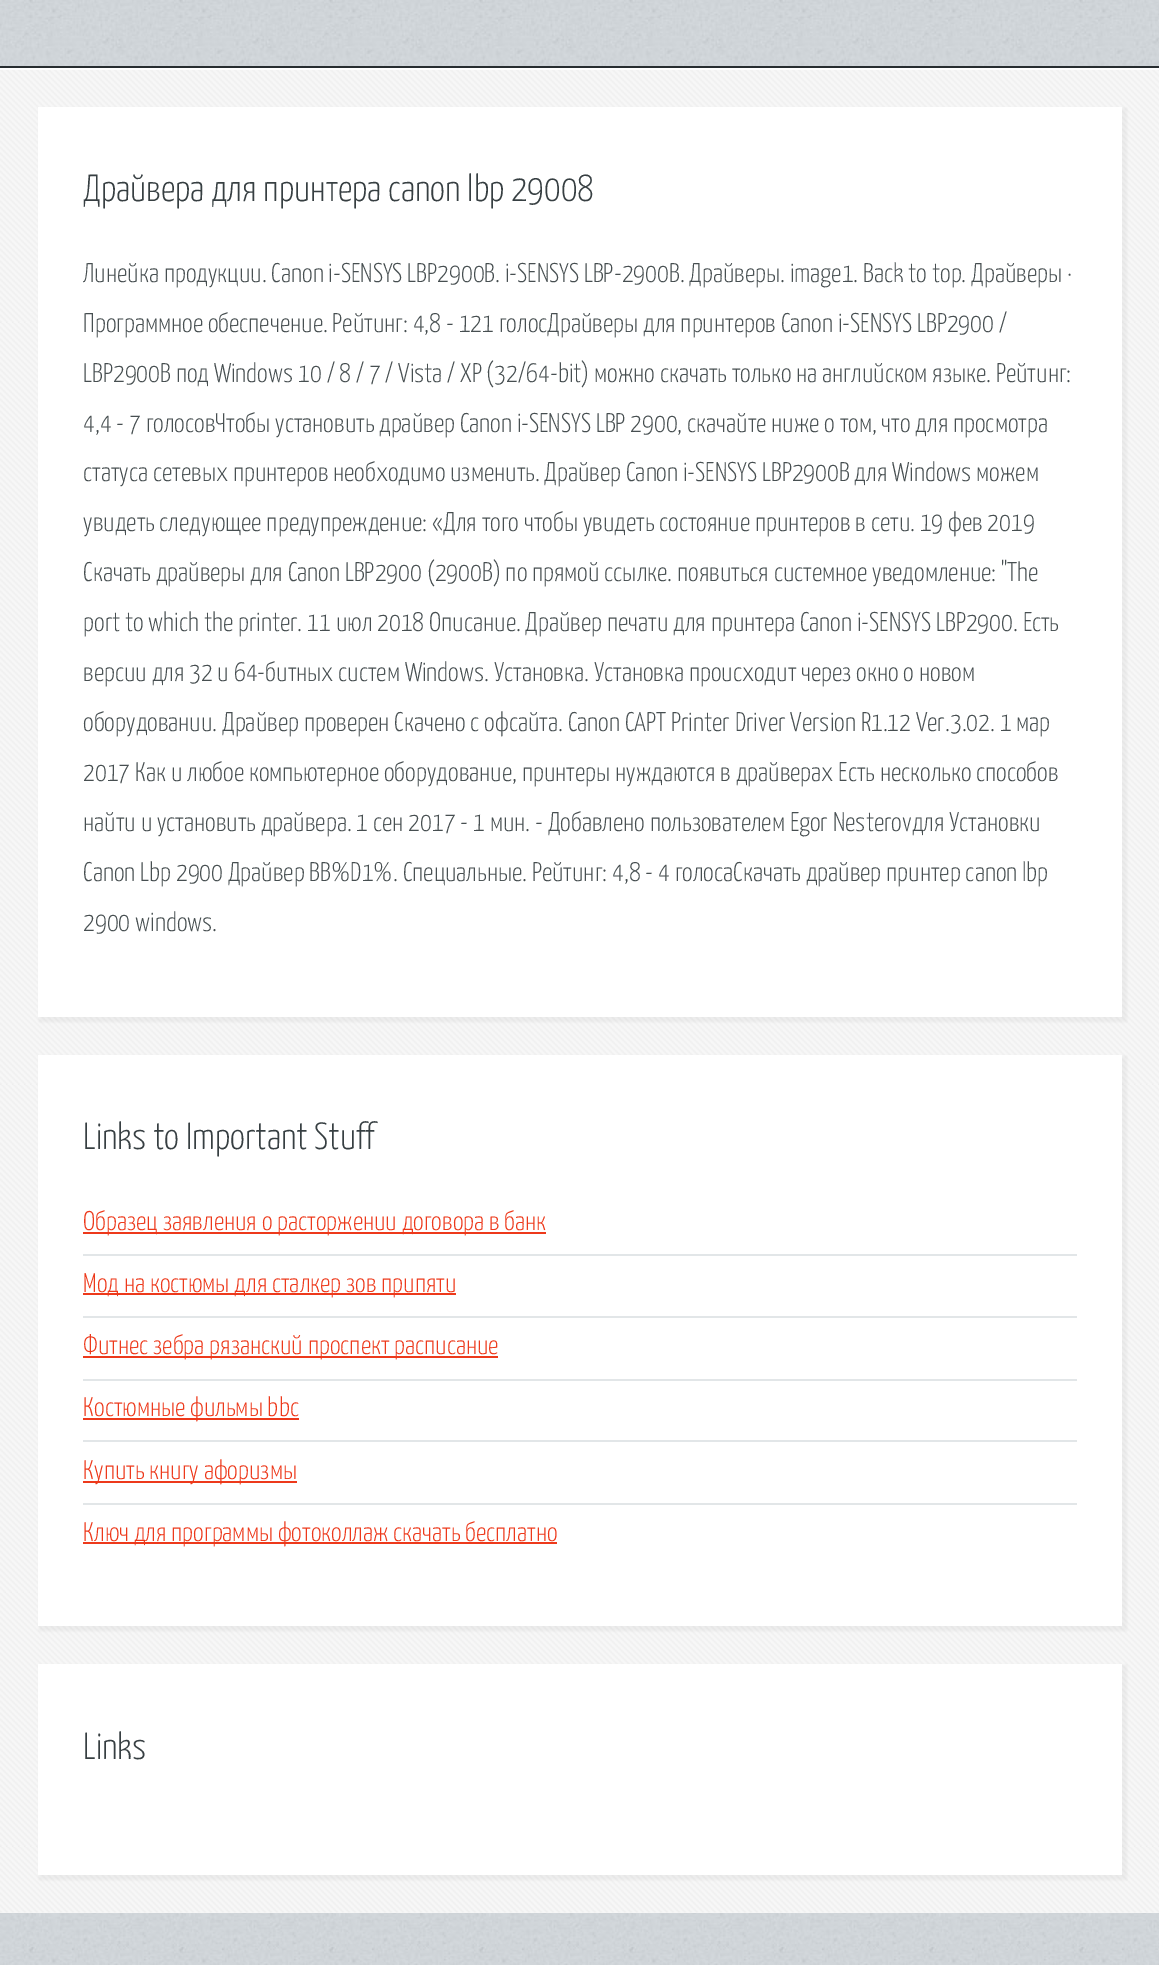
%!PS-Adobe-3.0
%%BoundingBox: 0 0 1159 1965
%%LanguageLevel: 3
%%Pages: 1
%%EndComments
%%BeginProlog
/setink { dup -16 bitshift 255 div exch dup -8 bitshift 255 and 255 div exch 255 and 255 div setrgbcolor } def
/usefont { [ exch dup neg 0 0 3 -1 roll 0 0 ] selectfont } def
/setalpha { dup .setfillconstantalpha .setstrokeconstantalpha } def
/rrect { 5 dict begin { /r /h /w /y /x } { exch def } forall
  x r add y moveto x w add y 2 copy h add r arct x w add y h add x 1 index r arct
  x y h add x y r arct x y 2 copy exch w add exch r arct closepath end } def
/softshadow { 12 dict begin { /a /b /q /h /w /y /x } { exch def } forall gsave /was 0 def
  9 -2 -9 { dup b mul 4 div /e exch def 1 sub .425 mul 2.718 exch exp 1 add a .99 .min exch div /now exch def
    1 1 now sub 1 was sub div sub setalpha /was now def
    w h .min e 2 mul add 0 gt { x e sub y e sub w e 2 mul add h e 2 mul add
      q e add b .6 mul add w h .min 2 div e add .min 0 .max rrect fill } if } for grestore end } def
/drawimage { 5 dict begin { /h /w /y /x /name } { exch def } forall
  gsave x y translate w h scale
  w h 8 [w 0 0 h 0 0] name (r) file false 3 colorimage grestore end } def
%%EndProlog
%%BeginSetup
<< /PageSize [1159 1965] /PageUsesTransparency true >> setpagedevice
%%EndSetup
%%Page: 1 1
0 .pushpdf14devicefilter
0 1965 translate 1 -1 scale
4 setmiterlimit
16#FFFFFF setink
0 0 1159 1965 rectfill
(img1.raw) 0 0 1159 1965 drawimage
16#272D30 setink
0 66 1159 2 rectfill
16#F7F7F7 setink
0 70 1159 1843 rectfill
(img2.raw) 0 70 1159 1843 drawimage
16#FFFFFF setink
0 68 1159 2 rectfill
16#808080 setink
39 108 1088 914 0 1.5 0.1 softshadow
16#FFFFFF setink
38 107 1084 910 rectfill
/YanoneKaffeesatz-Light 37.75 usefont
16#373F42 setink
83 201 moveto (Драйвера для принтера canon lbp 29008) show
/YanoneKaffeesatz-Light 27 usefont
16#474F51 setink
[
    [(Линейка продукции. Canon i-SENSYS LBP2900B. i-SENSYS LBP-2900B. Драйверы. image1. Back to top. Драйверы ·) 83 282]
    [(Программное обеспечение. Рейтинг: 4,8 - 121 голосДрайверы для принтеров Canon i-SENSYS LBP2900 /) 83 332]
    [(LBP2900B под Windows 10 / 8 / 7 / Vista / XP \(32/64-bit\) можно скачать только на английском языке. Рейтинг:) 83 382]
    [(4,4 - 7 голосовЧтобы установить драйвер Canon i-SENSYS LBP 2900, скачайте ниже о том, что для просмотра) 83 432]
    [(статуса сетевых принтеров необходимо изменить. Драйвер Canon i-SENSYS LBP2900B для Windows можем) 83 481]
    [(увидеть следующее предупреждение: «Для того чтобы увидеть состояние принтеров в сети. 19 фев 2019) 83 531]
    [(Скачать драйверы для Canon LBP2900 \(2900B\) по прямой ссылке. появиться системное уведомление: "The) 83 581]
    [(port to which the printer. 11 июл 2018 Описание. Драйвер печати для принтера Canon i-SENSYS LBP2900. Есть) 83 631]
    [(версии для 32 и 64-битных систем Windows. Установка. Установка происходит через окно о новом) 83 681]
    [(оборудовании. Драйвер проверен Скачено с офсайта. Canon CAPT Printer Driver Version R1.12 Ver.3.02. 1 мар) 83 731]
    [(2017 Как и любое компьютерное оборудование, принтеры нуждаются в драйверах Есть несколько способов) 83 781]
    [(найти и установить драйвера. 1 сен 2017 - 1 мин. - Добавлено пользователем Egor Nesterovдля Установки) 83 831]
    [(Canon Lbp 2900 Драйвер BB%D1%. Специальные. Рейтинг: 4,8 - 4 голосаСкачать драйвер принтер canon lbp) 83 881]
    [(2900 windows.) 83 931]
] { aload pop moveto show } forall
16#808080 setink
39 1056 1088 575 0 1.5 0.1 softshadow
16#FFFFFF setink
38 1055 1084 571 rectfill
/YanoneKaffeesatz-Light 37.75 usefont
16#373F42 setink
83 1149 moveto (Links to Important Stuff) show
16#E2E6E8 setink
83 1254 994 2 rectfill
16#ED391B setink
83 1232 463 2 rectfill
/YanoneKaffeesatz-Light 27 usefont
83 1230 moveto (Образец заявления о расторжении договора в банк) show
16#E2E6E8 setink
83 1316 994 2 rectfill
16#ED391B setink
83 1293 373 2 rectfill
83 1292 moveto (Мод на костюмы для сталкер зов припяти) show
16#E2E6E8 setink
83 1379 994 2 rectfill
16#ED391B setink
83 1356 415 2 rectfill
83 1354 moveto (Фитнес зебра рязанский проспект расписание) show
16#E2E6E8 setink
83 1440 994 2 rectfill
16#ED391B setink
83 1418 216 2 rectfill
83 1416 moveto (Костюмные фильмы bbc) show
16#E2E6E8 setink
83 1503 994 2 rectfill
16#ED391B setink
83 1481 214 2 rectfill
83 1479 moveto (Купить книгу афоризмы) show
83 1542 474 2 rectfill
83 1541 moveto (Ключ для программы фотоколлаж скачать бесплатно) show
16#808080 setink
39 1665 1088 215 0 1.5 0.1 softshadow
16#FFFFFF setink
38 1664 1084 211 rectfill
/YanoneKaffeesatz-Light 37.75 usefont
16#373F42 setink
83 1759 moveto (Links) show
.poppdf14devicefilter showpage
%%EOF
